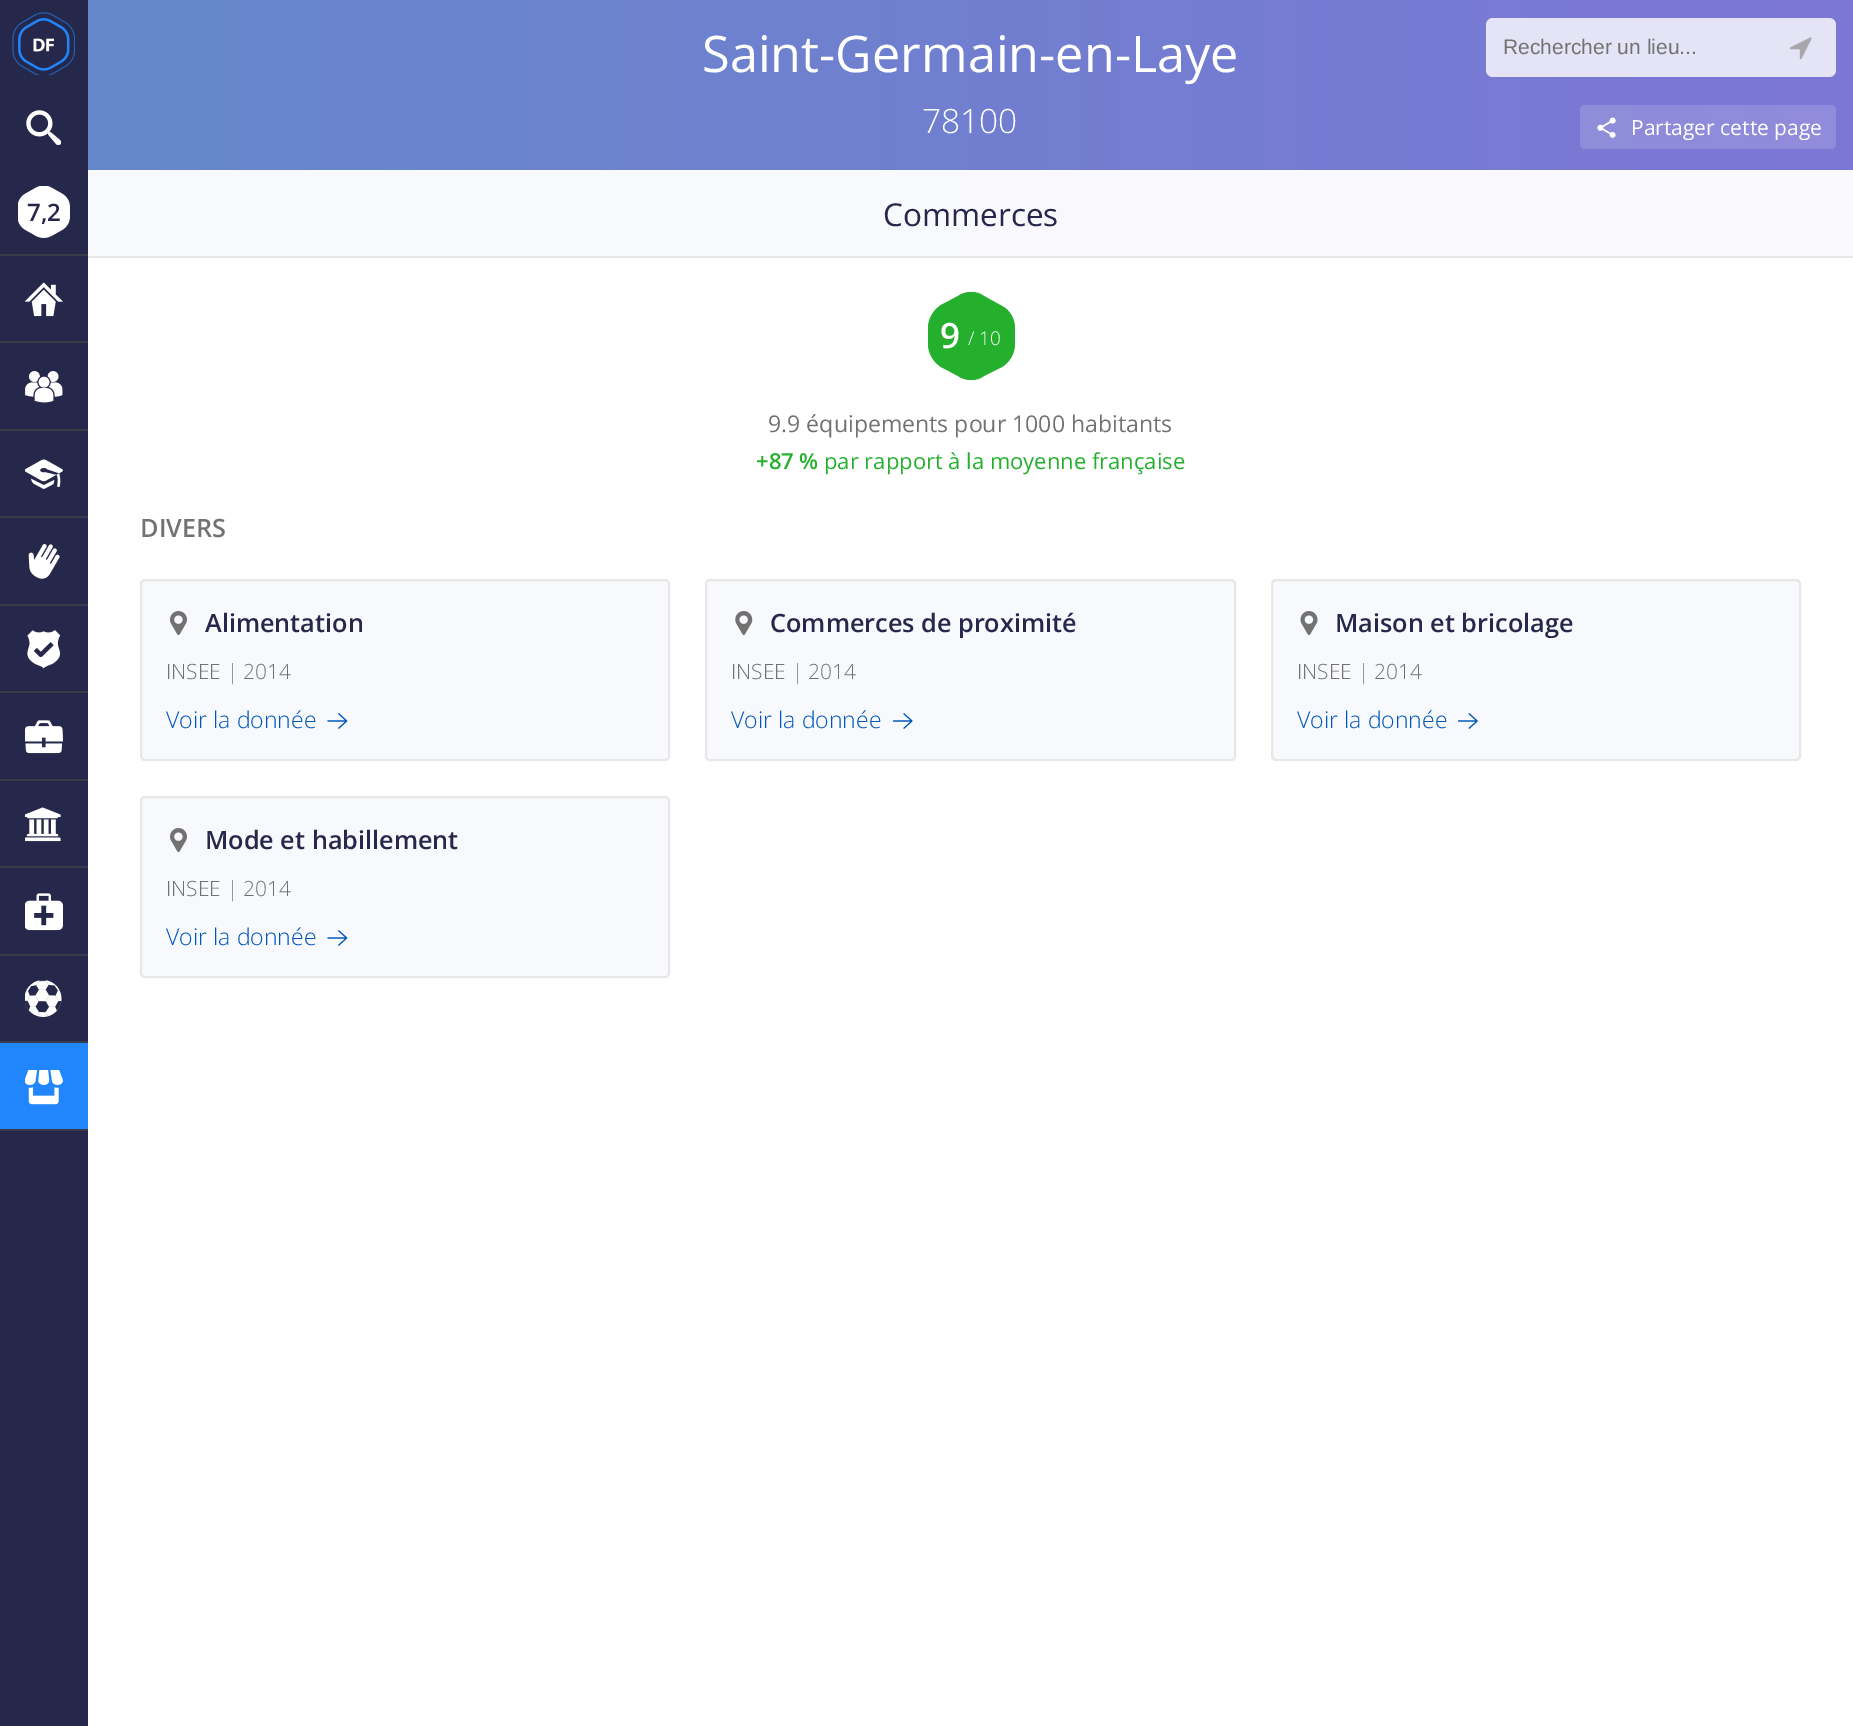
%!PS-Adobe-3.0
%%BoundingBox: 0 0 1853 1726
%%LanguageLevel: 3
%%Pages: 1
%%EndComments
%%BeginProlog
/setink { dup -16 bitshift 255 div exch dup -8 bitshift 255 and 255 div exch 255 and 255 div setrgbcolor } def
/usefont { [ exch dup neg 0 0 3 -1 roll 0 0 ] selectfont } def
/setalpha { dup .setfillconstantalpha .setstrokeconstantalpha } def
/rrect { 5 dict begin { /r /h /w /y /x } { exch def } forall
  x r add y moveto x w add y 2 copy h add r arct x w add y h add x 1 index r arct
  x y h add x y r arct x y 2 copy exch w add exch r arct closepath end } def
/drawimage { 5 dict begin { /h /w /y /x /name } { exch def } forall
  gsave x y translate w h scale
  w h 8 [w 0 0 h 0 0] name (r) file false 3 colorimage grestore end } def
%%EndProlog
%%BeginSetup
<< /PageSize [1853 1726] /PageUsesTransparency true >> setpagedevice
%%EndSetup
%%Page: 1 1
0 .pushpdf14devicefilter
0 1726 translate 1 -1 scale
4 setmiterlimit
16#FFFFFF setink
0 0 1853 1726 rectfill
16#25284A setink
0 0 88 1726 rectfill
(img1.raw) 12 12 63 63 drawimage
(img2.raw) 26 110 35 35 drawimage
16#3A3B49 setink
0 254 88 2 rectfill
(img3.raw) 18 186 52 52 drawimage
/OpenSans-SemiBold 24 usefont
16#25284A setink
27 221 moveto (7,2) show
16#3A3B49 setink
0 341 88 2 rectfill
(img4.raw) 25 282 38 35 drawimage
0 429 88 2 rectfill
(img5.raw) 25 371 38 32 drawimage
0 516 88 2 rectfill
(img6.raw) 25 459 38 30 drawimage
0 604 88 2 rectfill
(img7.raw) 28 544 32 35 drawimage
0 691 88 2 rectfill
(img8.raw) 27 630 34 39 drawimage
0 779 88 2 rectfill
(img9.raw) 25 720 38 34 drawimage
0 866 88 2 rectfill
(img10.raw) 25 807 36 35 drawimage
0 954 88 2 rectfill
(img11.raw) 25 893 38 38 drawimage
0 1041 88 2 rectfill
(img12.raw) 25 980 37 37 drawimage
16#2185FB setink
0 1043 88 86 rectfill
16#3A3B49 setink
0 1129 88 2 rectfill
(img13.raw) 25 1070 38 35 drawimage
gsave 88 0 moveto 1853 0 lineto 1853 170 lineto 88 170 lineto closepath clip newpath
<< /ShadingType 2 /ColorSpace /DeviceRGB /Coords [88 129 1853 129] /Extend [true true] /Function << /FunctionType 2 /Domain [0 1] /C0 [0.396 0.533 0.792] /C1 [0.49 0.467 0.839] /N 1 >> >> shfill grestore
gsave 88 170 moveto 1853 170 lineto 1853 256 lineto 88 256 lineto closepath clip newpath
<< /ShadingType 2 /ColorSpace /DeviceRGB /Coords [88 129 1853 129] /Extend [true true] /Function << /FunctionType 2 /Domain [0 1] /C0 [0.969 0.976 0.988] /C1 [0.976 0.973 0.992] /N 1 >> >> shfill grestore
/OpenSans-Regular 50.4 usefont
16#FFFFFF setink
702 72 moveto (Saint-Germain-en-Laye) show
/OpenSans-Light 33.5 usefont
922 133 moveto (78100) show
0.15 setalpha
1580 105 256 44 5 rrect fill
1 setalpha
(img14.raw) 1597 117 19 21 drawimage
/OpenSans-Regular 21 usefont
1631 135 moveto (Partager cette page) show
16#E7E7E7 setink
88 256 1765 2 rectfill
/OpenSans-Regular 31.5 usefont
16#25284A setink
883 226 moveto (Commerces) show
0.8 setalpha
16#FFFFFF setink
1486 18 350 59 7 rrect fill
/LiberationSans-Regular 21 usefont
1 setalpha
16#727272 setink
1503 54 moveto (Rechercher un lieu...) show
(img15.raw) 1789 37 23 23 drawimage
16#24AF2D setink
971 292 moveto 967 292 962 293 958 296 curveto 941 305 lineto 933 310 928 319 928 328 curveto 928 344 lineto 928 353 933 362 941 367 curveto 958 376 lineto 962 379 967 380 971 380 curveto 976 380 980 379 984 376 curveto 1002 367 lineto 1010 362 1015 353 1015 344 curveto 1015 328 lineto 1015 319 1010 310 1002 306 curveto 984 296 lineto 980 293 976 292 971 292 curveto closepath fill
/OpenSans-SemiBold 35 usefont
16#FFFFFF setink
940 348 moveto (9) show
/OpenSans-Light 19 usefont
968 345 moveto (/ 10) show
/OpenSans-Regular 23.1 usefont
16#727272 setink
768 432 moveto (9.9 équipements pour 1000 habitants) show
/OpenSans-SemiBold 22 usefont
16#24AF2D setink
756 469 moveto (+87 %) show
/OpenSans-Regular 22 usefont
824 469 moveto (par rapport à la moyenne française) show
/OpenSans-SemiBold 25.25 usefont
16#727272 setink
140 537 moveto (DIVERS) show
16#F7F9FC setink
141 580 528 180 4 rrect gsave fill grestore
16#E7E7E7 setink
2 setlinewidth
stroke
(img16.raw) 170 611 17 24 drawimage
16#25284A setink
205 632 moveto (Alimentation) show
/OpenSans-Light 21 usefont
16#727272 setink
166 679 moveto (INSEE | 2014) show
/OpenSans-Light 23.1 usefont
16#0056BB setink
166 728 moveto (Voir la donnée) show
(img17.raw) 327 713 21 16 drawimage
16#F7F9FC setink
706 580 529 180 4 rrect gsave fill grestore
16#E7E7E7 setink
stroke
(img18.raw) 735 611 18 24 drawimage
/OpenSans-SemiBold 25.25 usefont
16#25284A setink
770 632 moveto (Commerces de proximité) show
/OpenSans-Light 21 usefont
16#727272 setink
731 679 moveto (INSEE | 2014) show
/OpenSans-Light 23.1 usefont
16#0056BB setink
731 728 moveto (Voir la donnée) show
(img19.raw) 893 713 20 16 drawimage
16#F7F9FC setink
1272 580 528 180 4 rrect gsave fill grestore
16#E7E7E7 setink
stroke
(img20.raw) 1300 611 18 24 drawimage
/OpenSans-SemiBold 25.25 usefont
16#25284A setink
1335 632 moveto (Maison et bricolage) show
/OpenSans-Light 21 usefont
16#727272 setink
1297 679 moveto (INSEE | 2014) show
/OpenSans-Light 23.1 usefont
16#0056BB setink
1297 728 moveto (Voir la donnée) show
(img21.raw) 1458 713 20 16 drawimage
16#F7F9FC setink
141 797 528 180 4 rrect gsave fill grestore
16#E7E7E7 setink
stroke
(img16.raw) 170 828 17 24 drawimage
/OpenSans-SemiBold 25.25 usefont
16#25284A setink
205 849 moveto (Mode et habillement) show
/OpenSans-Light 21 usefont
16#727272 setink
166 896 moveto (INSEE | 2014) show
/OpenSans-Light 23.1 usefont
16#0056BB setink
166 945 moveto (Voir la donnée) show
(img17.raw) 327 930 21 16 drawimage
.poppdf14devicefilter showpage
%%EOF
